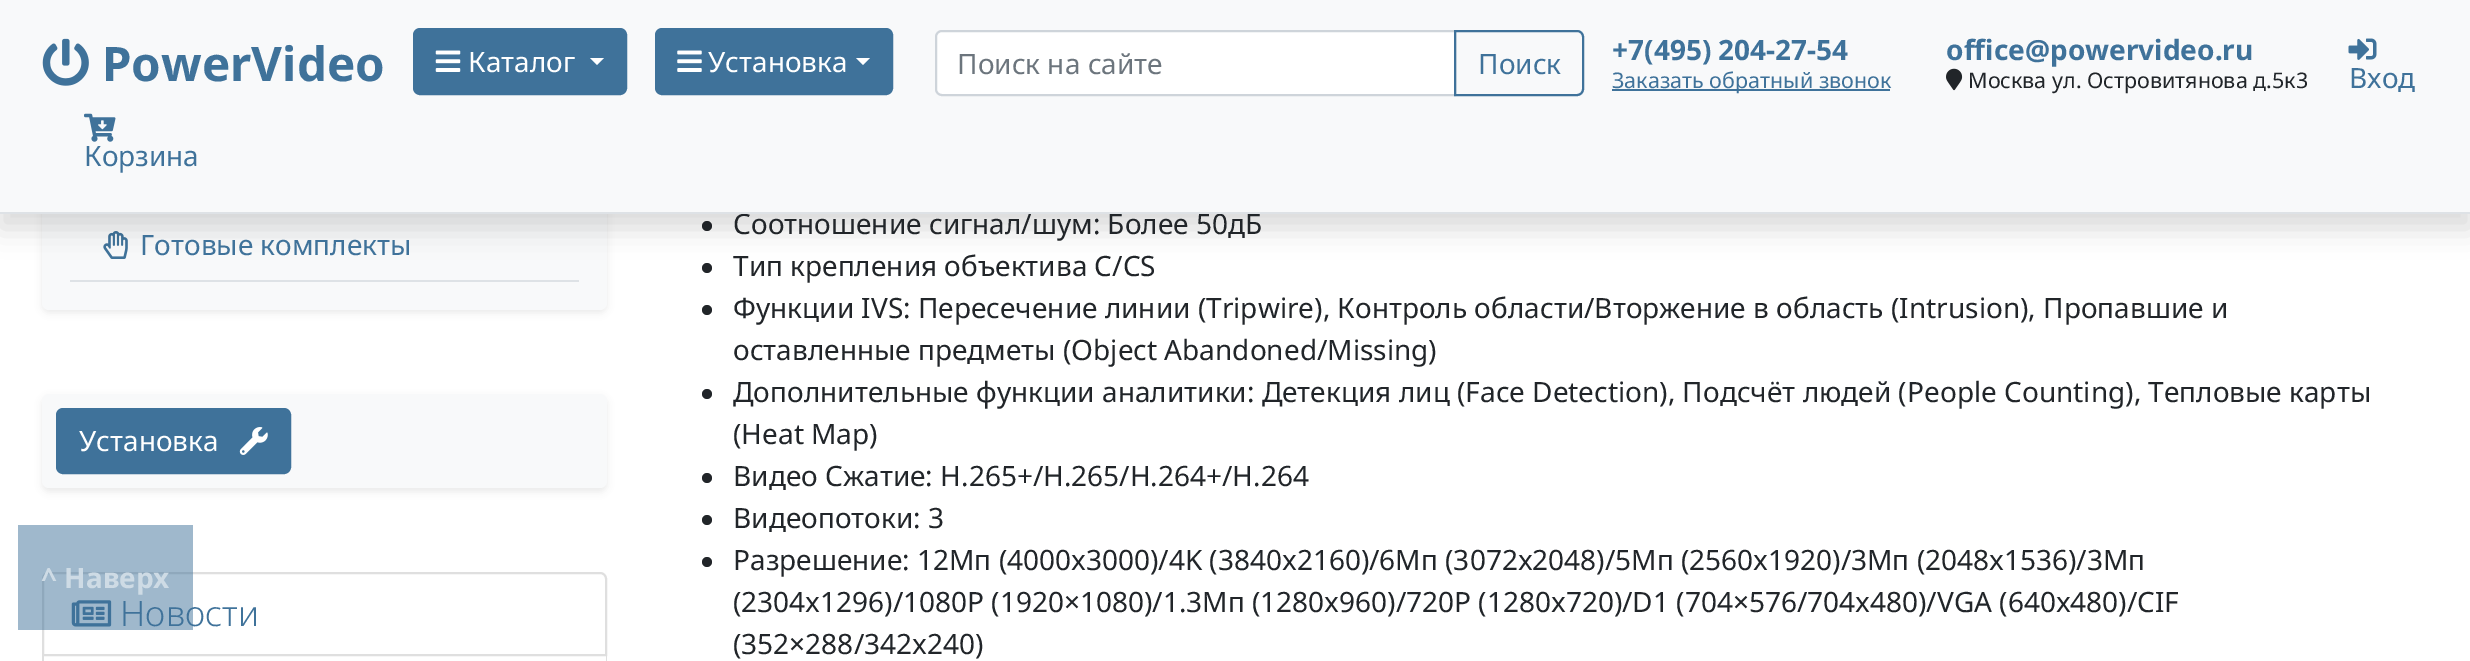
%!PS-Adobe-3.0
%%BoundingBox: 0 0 2470 661
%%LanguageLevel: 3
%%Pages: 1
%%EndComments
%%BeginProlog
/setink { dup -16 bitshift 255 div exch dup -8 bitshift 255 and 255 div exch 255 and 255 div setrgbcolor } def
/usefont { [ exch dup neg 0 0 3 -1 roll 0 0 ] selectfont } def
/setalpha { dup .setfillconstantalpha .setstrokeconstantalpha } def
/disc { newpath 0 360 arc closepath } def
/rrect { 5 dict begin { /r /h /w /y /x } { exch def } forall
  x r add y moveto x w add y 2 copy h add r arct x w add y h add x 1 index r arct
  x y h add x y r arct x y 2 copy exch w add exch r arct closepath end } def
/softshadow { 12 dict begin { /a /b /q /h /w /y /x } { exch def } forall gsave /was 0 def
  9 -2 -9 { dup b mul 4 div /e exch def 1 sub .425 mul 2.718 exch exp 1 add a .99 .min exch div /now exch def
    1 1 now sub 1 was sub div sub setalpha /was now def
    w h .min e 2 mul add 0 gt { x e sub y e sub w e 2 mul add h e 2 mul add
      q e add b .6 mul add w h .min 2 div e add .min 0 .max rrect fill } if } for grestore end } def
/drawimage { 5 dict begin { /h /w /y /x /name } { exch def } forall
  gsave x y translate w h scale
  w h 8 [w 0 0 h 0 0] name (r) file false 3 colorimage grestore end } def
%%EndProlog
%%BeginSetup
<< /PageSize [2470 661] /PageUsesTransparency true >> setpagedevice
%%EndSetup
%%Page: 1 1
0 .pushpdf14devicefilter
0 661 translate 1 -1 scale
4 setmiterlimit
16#FFFFFF setink
0 0 2470 661 rectfill
16#000000 setink
42 -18 565 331 7 3.5 0.07 softshadow
16#F8F9FA setink
42 -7 565 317 7 rrect fill
(img7.raw) 103 231 25 28 drawimage
16#212529 setink
707 226 5 disc fill
707 268 5 disc fill
16#000000 setink
0 14 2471 214 0 14 0.15 softshadow
16#F8F9FA setink
0 0 2470 212 rectfill
/NotoSans-Regular 28 usefont
16#212529 setink
733 234 moveto (Соотношение сигнал/шум: Более 50дБ) show
16#DEE2E6 setink
0 212 2470 2 rectfill
(img1.raw) 42 38 47 48 drawimage
/NotoSans-Bold 47.5 usefont
16#3F729A setink
102 81 moveto (PowerVideo) show
414 29 212 65 6 rrect gsave fill grestore
2 setlinewidth
stroke
(img2.raw) 435 50 26 22 drawimage
/NotoSans-Regular 28 usefont
16#FFFFFF setink
468 72 moveto (Каталог) show
590 58 moveto 604 58 lineto 597 65 lineto closepath fill
16#3F729A setink
656 29 236 65 6 rrect gsave fill grestore
stroke
(img3.raw) 677 50 25 22 drawimage
16#FFFFFF setink
708 72 moveto (Установка) show
856 58 moveto 870 58 lineto 863 65 lineto closepath fill
942 31 moveto 1455 31 lineto 1455 95 lineto 942 95 lineto 938.5 95 936 92.5 936 89 curveto 936 37 lineto 936 33.5 938.5 31 942 31 curveto closepath gsave fill grestore
16#CED4DA setink
stroke
16#6C757D setink
957 74 moveto (Поиск на сайте) show
16#3F729A setink
1455 31 moveto 1577 31 lineto 1580.5 31 1583 33.5 1583 37 curveto 1583 89 lineto 1583 92.5 1580.5 95 1577 95 curveto 1455 95 lineto closepath stroke
1478 74 moveto (Поиск) show
/NotoSans-Bold 28 usefont
1612 60 moveto (+7\(495\) 204-27-54) show
1612 89 278 2 rectfill
/NotoSans-Regular 21.5 usefont
1612 88 moveto (Заказать обратный звонок) show
/NotoSans-Bold 28 usefont
1946 60 moveto (office@powervideo.ru) show
(img4.raw) 1946 68 17 23 drawimage
/NotoSans-Regular 21.5 usefont
16#212529 setink
1968 88 moveto (Москва ул. Островитянова д.5к3) show
(img5.raw) 2348 38 29 22 drawimage
/NotoSans-Regular 28 usefont
16#3F729A setink
2349 88 moveto (Вход) show
(img6.raw) 84 113 32 29 drawimage
84 166 moveto (Корзина) show
16#DEE2E6 setink
70 280 509 2 rectfill
16#3F729A setink
140 255 moveto (Готовые комплекты) show
16#000000 setink
42 397 565 95 7 3.5 0.07 softshadow
16#F8F9FA setink
42 394 565 94 7 rrect fill
16#3F729A setink
57 409 233 64 6 rrect gsave fill grestore
stroke
16#FFFFFF setink
79 451 moveto (Установка) show
(img8.raw) 239 427 29 28 drawimage
16#DFDFDF setink
49 573 moveto 600 573 lineto 603.5 573 606 575.5 606 579 curveto 606 655 lineto 43 655 lineto 43 579 lineto 43 575.5 45.5 573 49 573 curveto closepath stroke
(img9.raw) 71 600 41 27 drawimage
/NotoSans-Light 35 usefont
16#3F729A setink
120 626 moveto (Новости) show
16#DFDFDF setink
607 656 moveto 607 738 lineto 606 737 lineto 606 656 lineto closepath fill
42 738 moveto 42 656 lineto 44 656 lineto 44 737 lineto closepath fill
/NotoSans-Regular 28 usefont
16#212529 setink
733 276 moveto (Тип крепления объектива C/CS) show
707 310 5 disc fill
733 318 moveto (Функции IVS: Пересечение линии \(Tripwire\), Контроль области/Вторжение в область \(Intrusion\), Пропавшие и) show
733 360 moveto (оставленные предметы \(Object Abandoned/Missing\)) show
707 394 5 disc fill
733 402 moveto (Дополнительные функции аналитики: Детекция лиц \(Face Detection\), Подсчёт людей \(People Counting\), Тепловые карты) show
733 444 moveto (\(Heat Map\)) show
707 478 5 disc fill
733 486 moveto (Видео Сжатие: H.265+/H.265/H.264+/H.264) show
707 520 5 disc fill
733 528 moveto (Видеопотоки: 3) show
707 562 5 disc fill
[
    [(Разрешение: 12Mп \(4000x3000\)/4K \(3840x2160\)/6Mп \(3072x2048\)/5Mп \(2560x1920\)/3Mп \(2048x1536\)/3Mп) 733 570]
    [(\(2304x1296\)/1080P \(1920×1080\)/1.3Mп \(1280x960\)/720P \(1280x720\)/D1 \(704×576/704x480\)/VGA \(640x480\)/CIF) 733 612]
    [(\(352×288/342x240\)) 733 654]
] { aload pop moveto show } forall
0.5 setalpha
16#3F729A setink
18 525 175 105 rectfill
/NotoSans-Bold 28 usefont
1 setalpha
16#CEDBE5 setink
41 588 moveto (^ Наверх) show
.poppdf14devicefilter showpage
%%EOF
